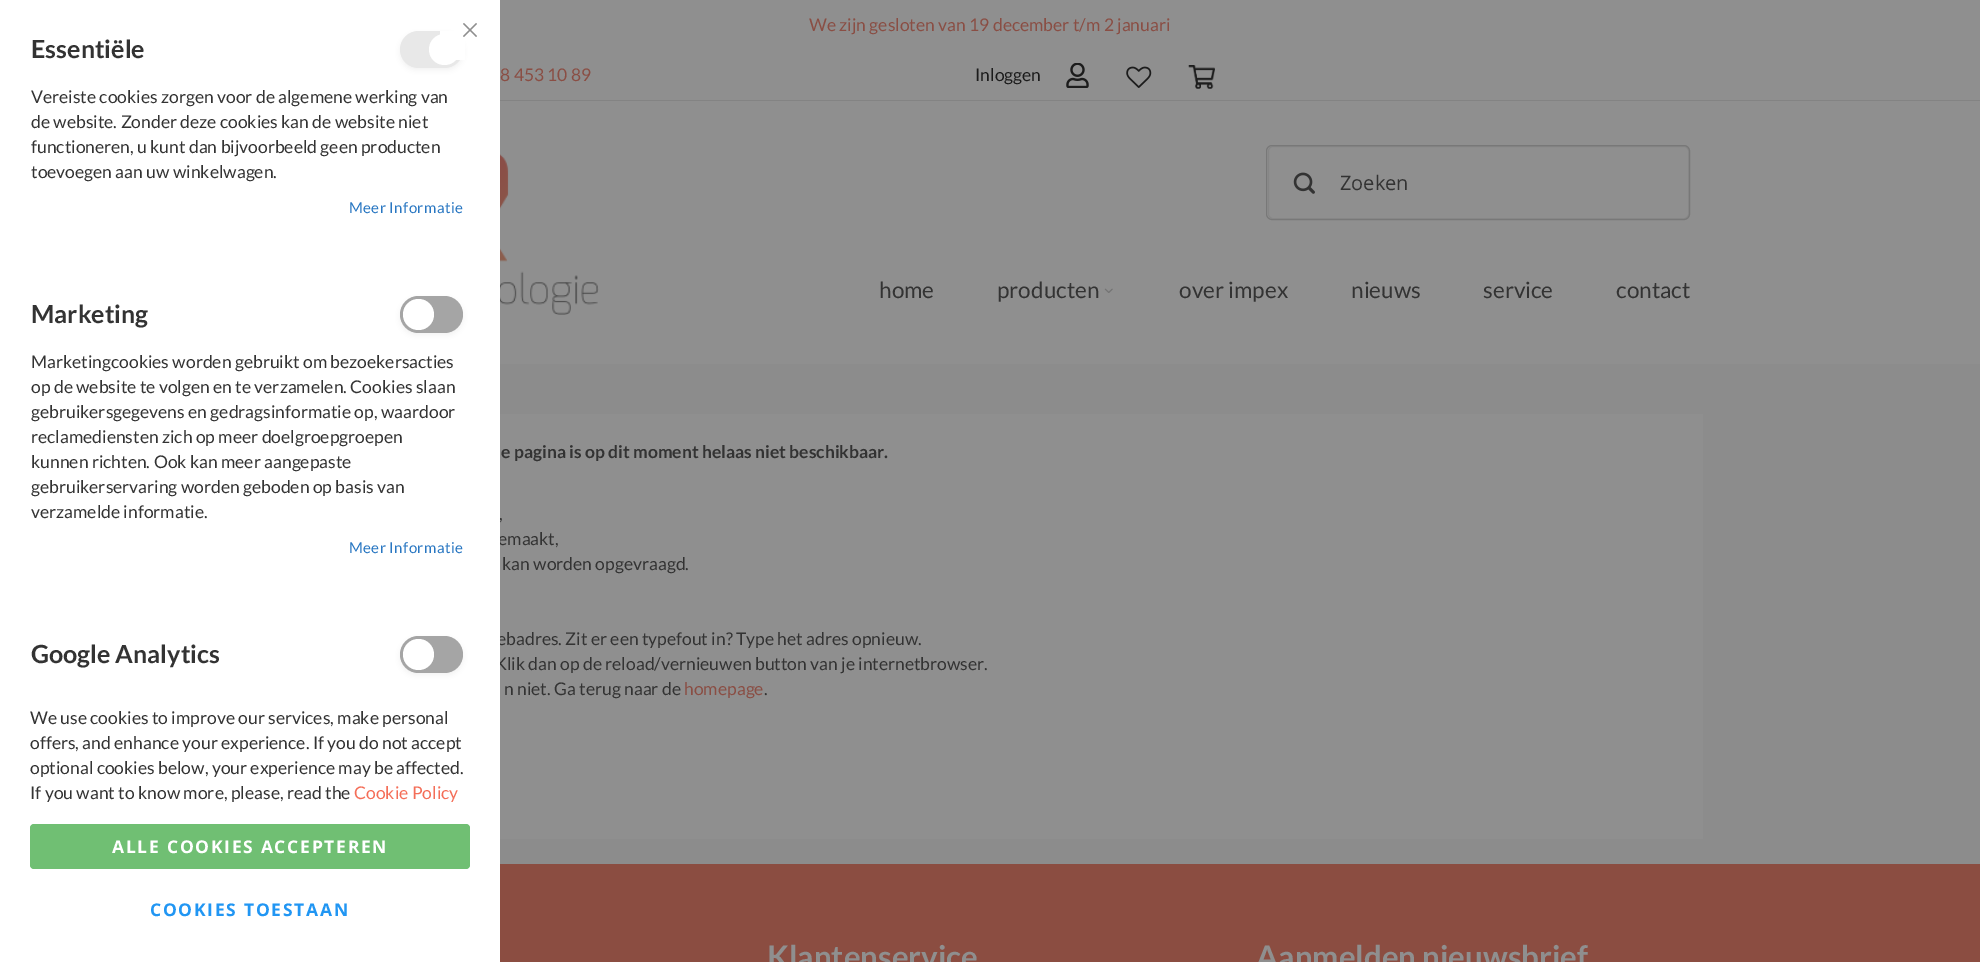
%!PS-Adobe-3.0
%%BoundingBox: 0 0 1980 962
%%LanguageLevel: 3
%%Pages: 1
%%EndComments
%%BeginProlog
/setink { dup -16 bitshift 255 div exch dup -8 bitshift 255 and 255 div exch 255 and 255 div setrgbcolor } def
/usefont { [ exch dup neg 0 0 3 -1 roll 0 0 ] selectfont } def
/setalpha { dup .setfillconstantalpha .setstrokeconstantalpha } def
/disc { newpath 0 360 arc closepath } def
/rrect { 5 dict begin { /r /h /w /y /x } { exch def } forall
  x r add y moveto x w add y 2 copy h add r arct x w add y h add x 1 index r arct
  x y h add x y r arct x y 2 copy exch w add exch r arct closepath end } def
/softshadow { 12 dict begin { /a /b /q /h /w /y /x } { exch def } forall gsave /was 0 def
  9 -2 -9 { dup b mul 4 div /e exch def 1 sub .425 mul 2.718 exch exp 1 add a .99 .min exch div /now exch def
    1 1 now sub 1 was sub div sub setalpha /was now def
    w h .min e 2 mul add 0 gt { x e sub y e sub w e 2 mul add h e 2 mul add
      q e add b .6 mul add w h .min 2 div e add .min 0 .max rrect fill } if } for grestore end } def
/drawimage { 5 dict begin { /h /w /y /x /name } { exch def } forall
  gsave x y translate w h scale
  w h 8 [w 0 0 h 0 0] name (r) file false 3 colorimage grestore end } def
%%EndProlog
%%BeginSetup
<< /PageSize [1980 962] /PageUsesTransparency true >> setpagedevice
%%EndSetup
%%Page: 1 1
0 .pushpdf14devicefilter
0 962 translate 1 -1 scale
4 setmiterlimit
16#8F8F8F setink
0 0 1980 962 rectfill
16#8C8C8C setink
500 364 1480 500 rectfill
16#8F8F8F setink
500 414 1203 425 rectfill
/Lato-Regular 17.5 usefont
16#333333 setink
[
    [(,) 499 520]
    [(emaakt,) 498 545]
    [(ebadres. Zit er een typefout in? Type het adres opnieuw.) 497 645]
    [(Klik dan op de reload/vernieuwen button van je internetbrowser.) 495 670]
] { aload pop moveto show } forall
16#FFFFFF setink
0 0 500 962 rectfill
16#000000 setink
400 34 63 36 18 3 0.05 softshadow
16#E8E8E8 setink
400 31 63 37 18.5 rrect fill
16#FFFFFF setink
444.5 49.5 15.5 disc fill
440 31 25 29 rectfill
(img1.raw) 463 23 14 14 drawimage
/Lato-Bold 25 usefont
16#333333 setink
31 58 moveto (Essentiële) show
/Lato-Regular 17.5 usefont
[
    [(Vereiste cookies zorgen voor de algemene werking van) 31 103]
    [(de website. Zonder deze cookies kan de website niet) 31 128]
    [(functioneren, u kunt dan bijvoorbeeld geen producten) 31 153]
    [(toevoegen aan uw winkelwagen.) 31 178]
] { aload pop moveto show } forall
/Lato-Regular 15 usefont
16#2977C2 setink
349 213 moveto 0.4 0 (Meer Informatie) ashow
/Lato-Bold 25 usefont
16#333333 setink
31 323 moveto (Marketing) show
16#000000 setink
400 299 63 36 18 3 0.05 softshadow
16#A5A5A5 setink
400 296 63 37 18.5 rrect fill
16#FFFFFF setink
418.5 314.5 15.5 disc fill
/Lato-Regular 17.5 usefont
16#333333 setink
[
    [(Marketingcookies worden gebruikt om bezoekersacties) 31 368]
    [(op de website te volgen en te verzamelen. Cookies slaan) 31 393]
    [(gebruikersgegevens en gedragsinformatie op, waardoor) 31 418]
    [(reclamediensten zich op meer doelgroepgroepen) 31 443]
    [(kunnen richten. Ook kan meer aangepaste) 31 468]
    [(gebruikerservaring worden geboden op basis van) 31 493]
    [(verzamelde informatie.) 31 518]
] { aload pop moveto show } forall
/Lato-Regular 15 usefont
16#2977C2 setink
349 553 moveto 0.4 0 (Meer Informatie) ashow
/Lato-Bold 25 usefont
16#333333 setink
31 663 moveto (Google Analytics) show
16#000000 setink
400 639 63 36 18 3 0.05 softshadow
16#A5A5A5 setink
400 636 63 37 18.5 rrect fill
16#FFFFFF setink
418.5 654.5 15.5 disc fill
/Lato-Regular 17.5 usefont
16#333333 setink
[
    [(We use cookies to improve our services, make personal) 30 724]
    [(offers, and enhance your experience. If you do not accept) 30 749]
    [(optional cookies below, your experience may be affected.) 30 774]
    [(If you want to know more, please, read the) 30 799]
] { aload pop moveto show } forall
16#F46E58 setink
354 799 moveto (Cookie Policy) show
16#70BF73 setink
30 824 440 45 4 rrect fill
/OpenSans-Bold 17.5 usefont
16#FFFFFF setink
112 853 moveto 1.7 0 (ALLE COOKIES ACCEPTEREN) ashow
16#2196F3 setink
150 916 moveto 1.7 0 (COOKIES TOESTAAN) ashow
16#838383 setink
500 100 1480 1 rectfill
/Lato-Regular 17.5 usefont
16#8A4E44 setink
809 31 moveto (We zijn gesloten van 19 december t/m 2 januari) show
500 81 moveto (8 453 10 89) show
16#1C1C1C setink
975 81 moveto (Inloggen) show
(img2.raw) 1066 63 23 25 drawimage
(img3.raw) 1126 66 26 22 drawimage
(img4.raw) 1188 65 27 24 drawimage
(img5.raw) 500 154 99 161 drawimage
16#868686 setink
1268.5 146.5 420 72 4.5 rrect stroke
16#787878 setink
1266.5 145.5 423 74 5.5 rrect stroke
(img6.raw) 1293 172 22 22 drawimage
/OpenSans-Regular 20 usefont
16#333333 setink
1340 190 moveto (Zoeken) show
/Lato-Regular 22.5 usefont
879 298 moveto (home) show
997 298 moveto (producten) show
(img7.raw) 1104 288 9 5 drawimage
[
    [(over impex) 1179 298]
    [(nieuws) 1351 298]
    [(service) 1483 298]
    [(contact) 1616 298]
] { aload pop moveto show } forall
/Lato-Bold 17.5 usefont
501 458 moveto (e pagina is op dit moment helaas niet beschikbaar.) show
/Lato-Regular 17.5 usefont
502 570 moveto (kan worden opgevraagd.) show
504 695 moveto (n niet. Ga terug naar de) show
16#8A4E44 setink
684 695 moveto (homepage) show
16#333333 setink
764 695 moveto (.) show
16#8B4D41 setink
500 864 1480 98 rectfill
/Lato-Bold 31.25 usefont
16#8F8F8F setink
767 968 moveto (Klantenservice) show
1256 968 moveto (Aanmelden nieuwsbrief) show
.poppdf14devicefilter showpage
%%EOF
